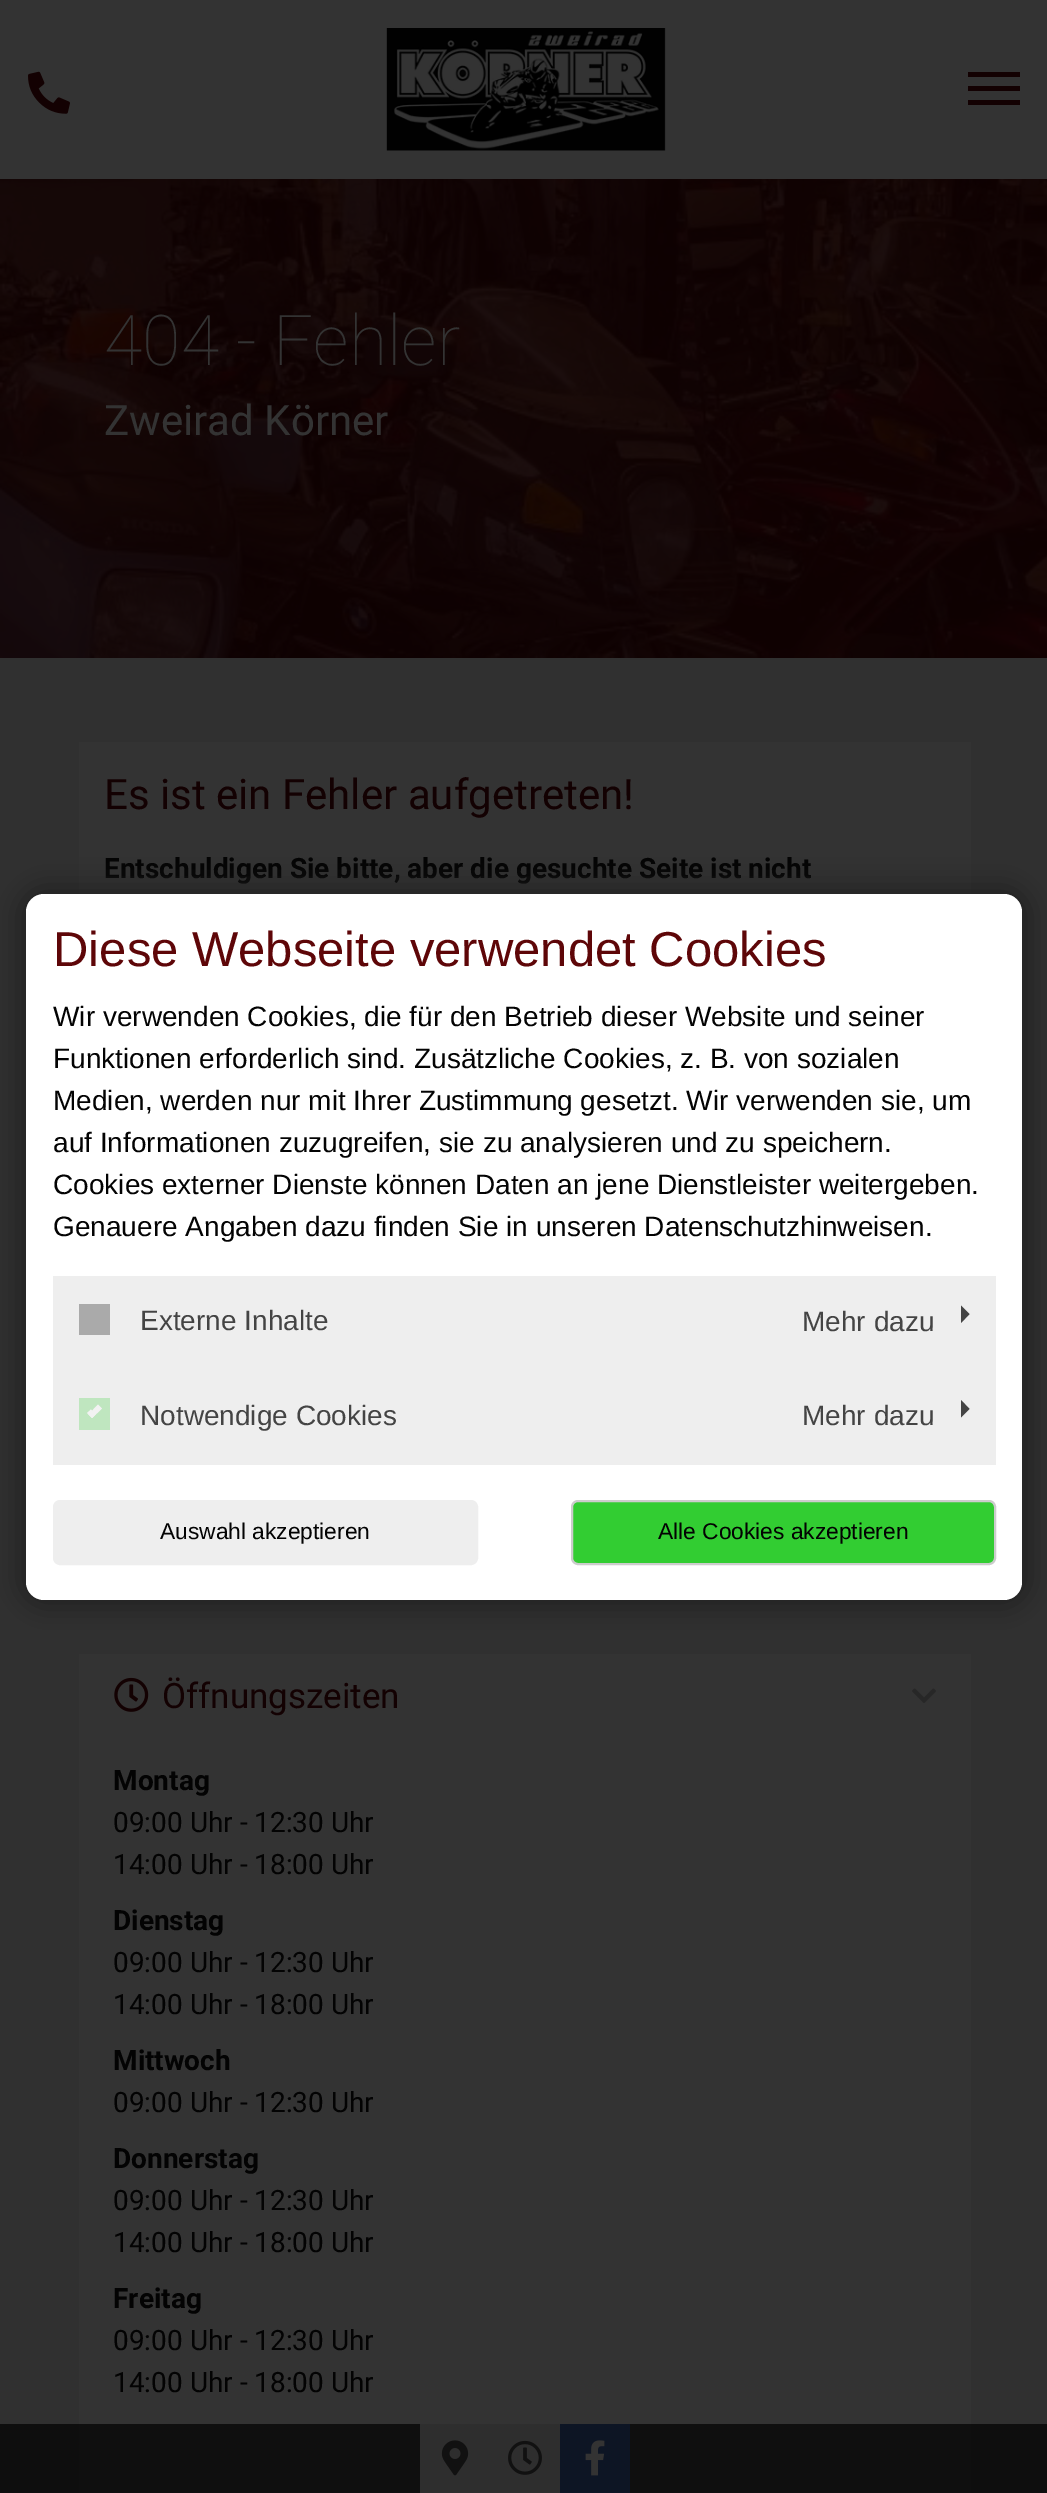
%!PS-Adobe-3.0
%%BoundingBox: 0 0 1047 2493
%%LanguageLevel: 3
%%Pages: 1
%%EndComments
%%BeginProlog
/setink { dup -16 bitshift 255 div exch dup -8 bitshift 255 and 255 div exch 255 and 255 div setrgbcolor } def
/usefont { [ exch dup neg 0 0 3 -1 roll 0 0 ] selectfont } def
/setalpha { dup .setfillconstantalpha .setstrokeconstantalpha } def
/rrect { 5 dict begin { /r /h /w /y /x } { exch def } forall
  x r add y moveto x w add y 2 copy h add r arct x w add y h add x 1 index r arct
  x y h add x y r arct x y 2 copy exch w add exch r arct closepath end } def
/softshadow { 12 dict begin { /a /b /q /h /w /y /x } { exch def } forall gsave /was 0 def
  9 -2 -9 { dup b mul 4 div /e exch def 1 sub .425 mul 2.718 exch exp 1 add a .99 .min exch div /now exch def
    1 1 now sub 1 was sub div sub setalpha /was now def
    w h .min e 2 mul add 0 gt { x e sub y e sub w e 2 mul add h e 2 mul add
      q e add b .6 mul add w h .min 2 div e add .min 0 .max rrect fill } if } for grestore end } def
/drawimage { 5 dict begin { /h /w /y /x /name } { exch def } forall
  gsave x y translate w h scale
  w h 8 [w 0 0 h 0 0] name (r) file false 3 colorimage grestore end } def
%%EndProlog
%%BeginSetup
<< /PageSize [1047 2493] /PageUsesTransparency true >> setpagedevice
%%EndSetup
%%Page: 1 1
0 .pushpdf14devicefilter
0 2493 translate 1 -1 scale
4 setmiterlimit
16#303030 setink
0 0 1047 2493 rectfill
16#333333 setink
0 0 1047 179 rectfill
(img1.raw) 28 71 42 43 drawimage
(img2.raw) 386 28 280 123 drawimage
[
    [968 72 52 5 16#130102]
    [968 86 52 5 16#130102]
    [968 100 52 5 16#130102]
] { aload pop setink rectfill } forall
(img3.raw) 0 179 1047 479 drawimage
/Roboto-Thin 70 usefont
16#333333 setink
104 365 moveto (404 - Fehler) show
/Roboto-Regular 42 usefont
104 435 moveto (Zweirad Körner) show
79 742 892 152 rectfill
16#130102 setink
104 809 moveto (Es ist ein Fehler aufgetreten!) show
/Roboto-Bold 28 usefont
16#030303 setink
104 878 moveto (Entschuldigen Sie bitte, aber die gesuchte Seite ist nicht) show
16#333333 setink
79 1654 892 839 rectfill
(img4.raw) 114 1677 35 35 drawimage
/Roboto-Regular 35 usefont
16#130102 setink
162 1708 moveto (Öffnungszeiten) show
(img5.raw) 912 1688 24 15 drawimage
/Roboto-Bold 28 usefont
16#030303 setink
113 1790 moveto (Montag) show
/Roboto-Regular 28 usefont
113 1832 moveto (09:00 Uhr - 12:30 Uhr) show
113 1874 moveto (14:00 Uhr - 18:00 Uhr) show
/Roboto-Bold 28 usefont
113 1930 moveto (Dienstag) show
/Roboto-Regular 28 usefont
113 1972 moveto (09:00 Uhr - 12:30 Uhr) show
113 2014 moveto (14:00 Uhr - 18:00 Uhr) show
/Roboto-Bold 28 usefont
113 2070 moveto (Mittwoch) show
/Roboto-Regular 28 usefont
113 2112 moveto (09:00 Uhr - 12:30 Uhr) show
/Roboto-Bold 28 usefont
113 2168 moveto (Donnerstag) show
/Roboto-Regular 28 usefont
113 2210 moveto (09:00 Uhr - 12:30 Uhr) show
113 2252 moveto (14:00 Uhr - 18:00 Uhr) show
/Roboto-Bold 28 usefont
113 2308 moveto (Freitag) show
/Roboto-Regular 28 usefont
113 2350 moveto (09:00 Uhr - 12:30 Uhr) show
113 2392 moveto (14:00 Uhr - 18:00 Uhr) show
0.7 setalpha
16#000000 setink
0 2424 1047 69 rectfill
1 setalpha
16#2E2E2E setink
420 2424 140 69 rectfill
(img6.raw) 441 2440 28 36 drawimage
16#0D1524 setink
560 2424 70 69 rectfill
(img7.raw) 585 2440 20 36 drawimage
(img8.raw) 508 2440 34 35 drawimage
16#222222 setink
18 886 1013 722 26 13 1 softshadow
16#FFFFFF setink
26 894 996 706 18 rrect fill
/LiberationSans-Regular 49 usefont
16#5E0608 setink
53 966 moveto (Diese Webseite verwendet Cookies) show
/LiberationSans-Regular 28 usefont
16#030303 setink
[
    [(Wir verwenden Cookies, die für den Betrieb dieser Website und seiner) 53 1026]
    [(Funktionen erforderlich sind. Zusätzliche Cookies, z. B. von sozialen) 53 1068]
    [(Medien, werden nur mit Ihrer Zustimmung gesetzt. Wir verwenden sie, um) 53 1110]
    [(auf Informationen zuzugreifen, sie zu analysieren und zu speichern.) 53 1152]
    [(Cookies externer Dienste können Daten an jene Dienstleister weitergeben.) 53 1194]
    [(Genauere Angaben dazu finden Sie in unseren Datenschutzhinweisen.) 53 1236]
] { aload pop moveto show } forall
16#EEEEEE setink
53 1276 943 189 rectfill
16#AAAAAA setink
79 1304 31 31 rectfill
16#444444 setink
140 1330 moveto (Externe Inhalte) show
802 1331 moveto (Mehr dazu) show
961 1323 moveto 961 1305.5 lineto 969.5 1314 lineto closepath fill
16#BFE6BF setink
79 1398 31 32 rectfill
16#F2F2F2 setink
98 1404.5 moveto 102 1408.5 lineto 92 1418 lineto 88.5 1414.5 lineto closepath fill
91 1409.5 moveto 95.5 1414.5 lineto 92 1418 lineto 87 1413 lineto closepath fill
16#444444 setink
140 1425 moveto (Notwendige Cookies) show
802 1425 moveto (Mehr dazu) show
961 1417.5 moveto 961 1400 lineto 969.5 1409 lineto closepath fill
16#EEEEEE setink
54 1501 423 63 6 rrect gsave fill grestore
2 setlinewidth
stroke
/LiberationSans-Regular 22.75 usefont
16#030303 setink
160 1539 moveto (Auswahl akzeptieren) show
16#32CD32 setink
572 1501 423 63 6 rrect gsave fill grestore
16#CCCCCC setink
stroke
16#030303 setink
658 1539 moveto (Alle Cookies akzeptieren) show
.poppdf14devicefilter showpage
%%EOF
